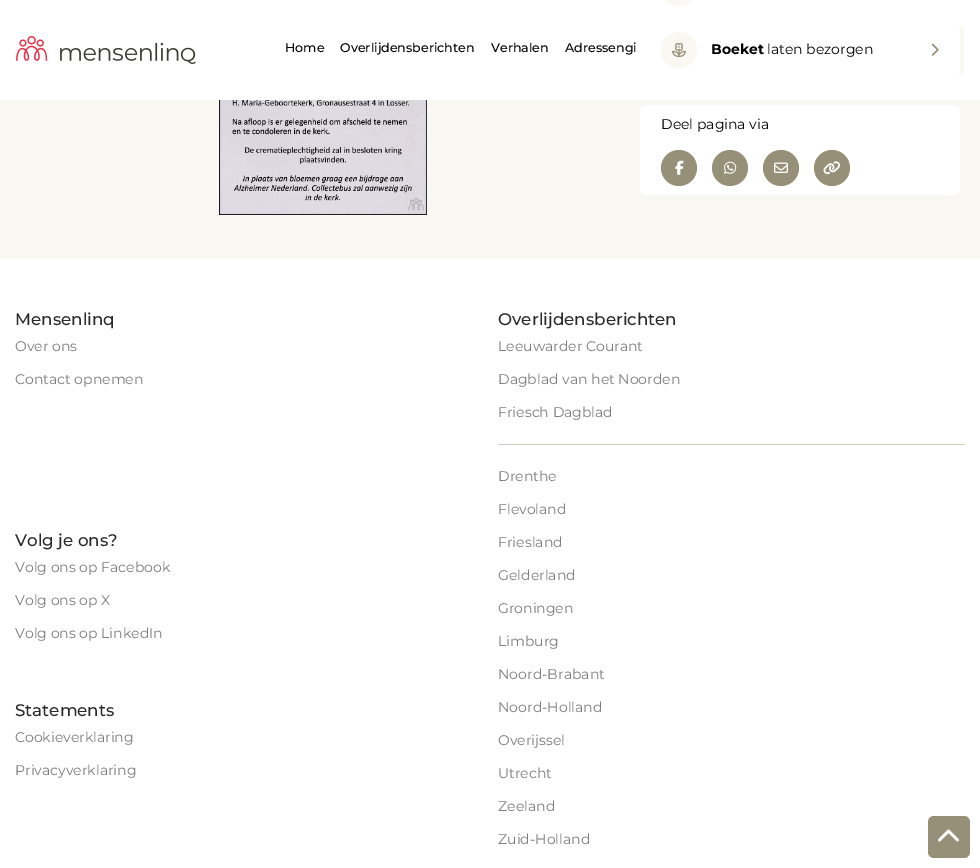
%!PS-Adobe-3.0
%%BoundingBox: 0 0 980 868
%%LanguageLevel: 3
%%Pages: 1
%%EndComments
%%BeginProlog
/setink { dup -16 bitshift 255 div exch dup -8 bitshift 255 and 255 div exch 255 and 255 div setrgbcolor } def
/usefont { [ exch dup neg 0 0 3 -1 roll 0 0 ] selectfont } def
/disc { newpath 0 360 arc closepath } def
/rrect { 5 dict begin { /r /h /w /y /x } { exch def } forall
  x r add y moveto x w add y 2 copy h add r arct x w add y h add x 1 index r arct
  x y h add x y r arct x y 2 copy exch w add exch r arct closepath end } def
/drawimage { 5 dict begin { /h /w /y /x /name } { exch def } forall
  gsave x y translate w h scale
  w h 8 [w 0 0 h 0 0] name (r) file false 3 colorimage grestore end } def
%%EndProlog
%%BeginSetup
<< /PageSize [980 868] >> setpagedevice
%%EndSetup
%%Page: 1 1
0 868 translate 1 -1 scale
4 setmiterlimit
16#FAF8F2 setink
0 0 980 868 rectfill
16#FFFFFF setink
0 0 980 100 rectfill
(img1.raw) 16 36 180 28 drawimage
/Montserrat-Medium 12.6 usefont
16#000000 setink
[
    [(Home) 285 52]
    [(Overlijdensberichten) 340 52]
    [(Verhalen) 491 52]
    [(Adressengi) 565 52]
] { aload pop moveto show } forall
16#FAF8F2 setink
914 25 50 50 6 rrect fill
661 -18 36 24 18 rrect fill
16#FFFFFF setink
640 23 320 54 6 rrect fill
16#FAF8F2 setink
679 50 18 disc fill
(img2.raw) 672 43 14 14 drawimage
/Montserrat-Bold 14 usefont
16#000000 setink
711 54 moveto (Boeket) show
/Montserrat-Regular 14 usefont
767 54 moveto (laten bezorgen) show
(img3.raw) 931 43 8 13 drawimage
16#FFFFFF setink
640 105 320 90 6 rrect fill
16#000000 setink
661 129 moveto (Deel pagina via) show
16#979079 setink
679 168 18 disc fill
(img4.raw) 675 160 9 15 drawimage
730 168 18 disc fill
(img5.raw) 724 161 13 13 drawimage
781 168 18 disc fill
(img6.raw) 774 162 14 11 drawimage
832 168 18 disc fill
(img7.raw) 823 161 17 14 drawimage
(img8.raw) 219 100 208 115 drawimage
16#FFFFFF setink
0 259 980 609 rectfill
/Montserrat-Medium 16.75 usefont
16#2A2A2A setink
15 325 moveto (Mensenlinq) show
/Montserrat-Regular 14 usefont
16#7C7C7C setink
15 351 moveto (Over ons) show
15 384 moveto (Contact opnemen) show
/Montserrat-Medium 16.75 usefont
16#2A2A2A setink
498 325 moveto (Overlijdensberichten) show
/Montserrat-Regular 14 usefont
16#7C7C7C setink
[
    [(Leeuwarder Courant) 498 351]
    [(Dagblad van het Noorden) 498 384]
    [(Friesch Dagblad) 498 417]
] { aload pop moveto show } forall
16#D5CFBD setink
498 444 467 1 rectfill
16#7C7C7C setink
[
    [(Drenthe) 498 481]
    [(Flevoland) 498 514]
    [(Friesland) 498 547]
    [(Gelderland) 498 580]
    [(Groningen) 498 613]
    [(Limburg) 498 646]
    [(Noord-Brabant) 498 679]
    [(Noord-Holland) 498 712]
    [(Overijssel) 498 745]
    [(Utrecht) 498 778]
    [(Zeeland) 498 811]
    [(Zuid-Holland) 498 844]
] { aload pop moveto show } forall
/Montserrat-Medium 16.75 usefont
16#2A2A2A setink
15 546 moveto (Volg je ons?) show
/Montserrat-Regular 14 usefont
16#7C7C7C setink
[
    [(Volg ons op Facebook) 15 572]
    [(Volg ons op X) 15 605]
    [(Volg ons op LinkedIn) 15 638]
] { aload pop moveto show } forall
/Montserrat-Medium 16.75 usefont
16#2A2A2A setink
15 716 moveto (Statements) show
/Montserrat-Regular 14 usefont
16#7C7C7C setink
15 742 moveto (Cookieverklaring) show
15 775 moveto (Privacyverklaring) show
16#979079 setink
928 816 42 42 6 rrect fill
(img9.raw) 938 829 21 13 drawimage
showpage
%%EOF
